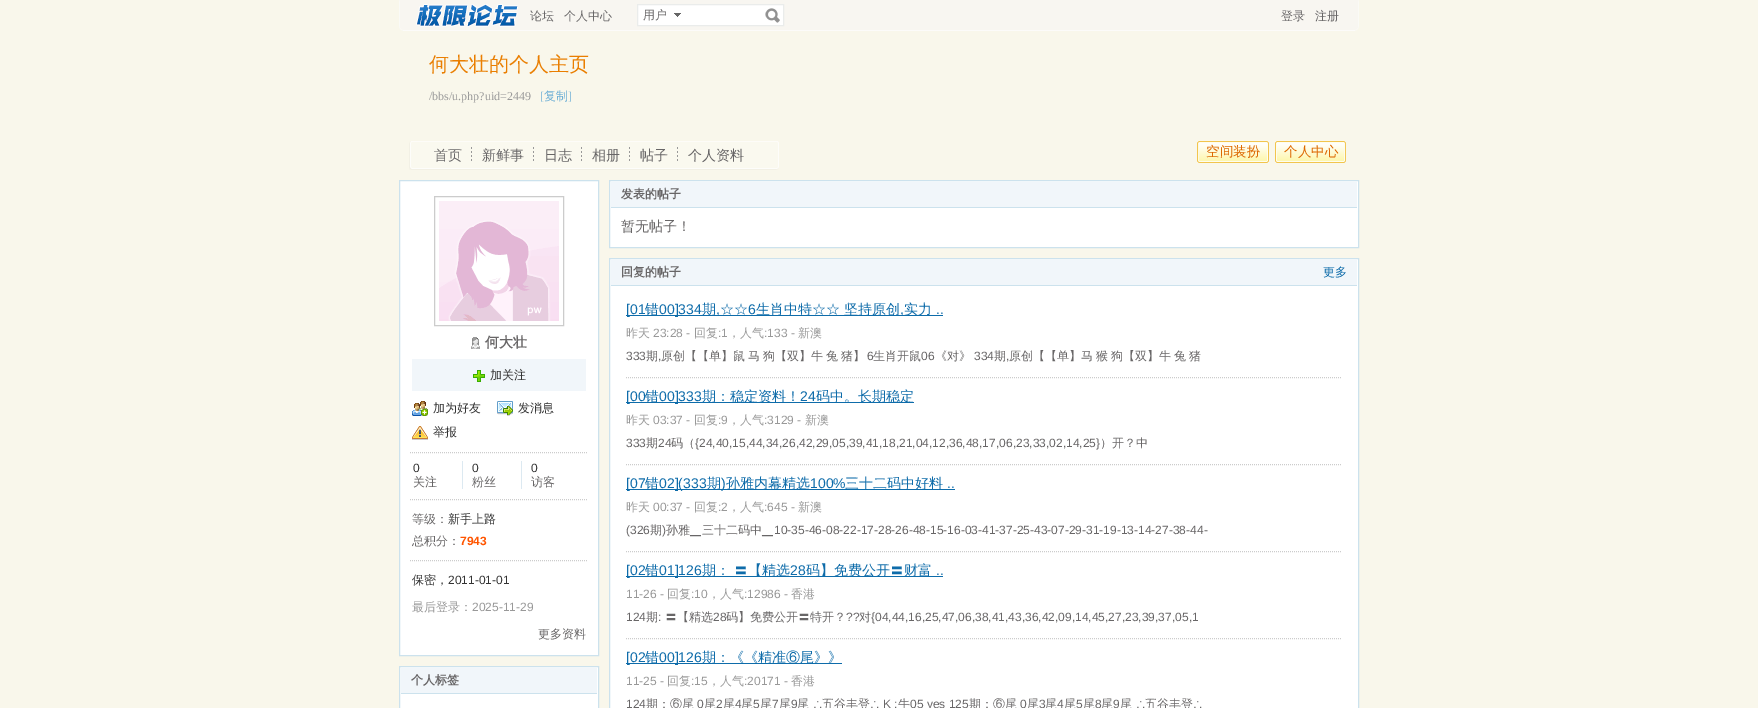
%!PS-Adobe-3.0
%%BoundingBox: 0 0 1758 708
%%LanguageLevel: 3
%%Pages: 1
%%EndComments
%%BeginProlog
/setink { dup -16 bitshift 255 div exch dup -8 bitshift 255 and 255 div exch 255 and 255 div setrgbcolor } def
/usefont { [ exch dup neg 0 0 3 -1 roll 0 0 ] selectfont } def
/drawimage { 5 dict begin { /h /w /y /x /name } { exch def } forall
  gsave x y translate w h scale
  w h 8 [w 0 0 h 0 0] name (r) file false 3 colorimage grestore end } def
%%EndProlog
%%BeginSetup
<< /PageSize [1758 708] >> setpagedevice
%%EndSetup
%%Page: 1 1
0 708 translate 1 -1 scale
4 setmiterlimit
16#F9F7EB setink
0 0 1758 708 rectfill
(img1.raw) 399 0 960 31 drawimage
(img2.raw) 416 4 102 23 drawimage
/WenQuanYiZenHei-Medium 12 usefont
16#686667 setink
530 20 moveto (论坛) show
564 20 moveto (个人中心) show
16#FFFFFF setink
637.5 4.5 moveto 783.5 4.5 lineto 783.5 25.5 lineto 637.5 25.5 lineto closepath gsave fill grestore
16#EAECEB setink
stroke
(img3.raw) 674 13 7 4 drawimage
16#686667 setink
643 19 moveto (用户) show
(img4.raw) 765 8 15 15 drawimage
1281 20 moveto (登录) show
1315 20 moveto (注册) show
/WenQuanYiZenHei-Medium 20 usefont
16#EA7E00 setink
429 71 moveto (何大壮的个人主页) show
/LiberationSerif-Regular 12 usefont
16#999999 setink
429 100 moveto (/bbs/u.php?uid=2449) show
16#6FB0D6 setink
540 100 moveto ([) show
/WenQuanYiZenHei-Medium 12 usefont
544 100 moveto (复制) show
/LiberationSerif-Regular 12 usefont
568 100 moveto (]) show
(img5.raw) 409 141 370 29 drawimage
(img6.raw) 471 147 1 14 drawimage
/WenQuanYiZenHei-Medium 14 usefont
16#686667 setink
434 160 moveto (首页) show
(img6.raw) 533 147 1 14 drawimage
482 160 moveto (新鲜事) show
(img6.raw) 581 147 1 14 drawimage
544 160 moveto (日志) show
(img6.raw) 629 147 1 14 drawimage
592 160 moveto (相册) show
(img6.raw) 677 147 1 14 drawimage
640 160 moveto (帖子) show
688 160 moveto (个人资料) show
(img7.raw) 1267 141 2 22 drawimage
(img8.raw) 1197 141 70 22 drawimage
/WenQuanYiZenHei-Medium 13.5 usefont
16#DD6800 setink
1206 156 moveto (空间装扮) show
(img9.raw) 1344 141 2 22 drawimage
(img10.raw) 1275 141 69 22 drawimage
1284 156 moveto (个人中心) show
16#FFFFFF setink
399.5 180.5 moveto 598.5 180.5 lineto 598.5 655.5 lineto 399.5 655.5 lineto closepath gsave fill grestore
16#CCE2ED setink
stroke
16#CCCCCC setink
434.5 196.5 129 129 rectstroke
(img11.raw) 439 201 120 120 drawimage
(img12.raw) 471 337 9 12 drawimage
/WenQuanYiZenHei-Bold 14 usefont
16#686667 setink
485 347 moveto (何大壮) show
16#F1F6FA setink
412 359 174 32 rectfill
(img13.raw) 473 370 12 12 drawimage
/WenQuanYiZenHei-Medium 12 usefont
16#333333 setink
490 379 moveto (加关注) show
(img14.raw) 412 401 16 15 drawimage
433 412 moveto (加为好友) show
(img15.raw) 497 401 16 15 drawimage
518 412 moveto (发消息) show
(img16.raw) 412 426 16 14 drawimage
433 436 moveto (举报) show
16#CCCCCC setink
[1 1] 0 setdash
410 452.5 moveto 588 452.5 lineto stroke
/LiberationSans-Regular 12 usefont
16#333333 setink
413 472 moveto (0) show
/WenQuanYiZenHei-Medium 12 usefont
16#686667 setink
413 486 moveto (关注) show
16#DCE9F1 setink
462 461 1 28 rectfill
/LiberationSans-Regular 12 usefont
16#333333 setink
472 472 moveto (0) show
/WenQuanYiZenHei-Medium 12 usefont
16#686667 setink
472 486 moveto (粉丝) show
16#DCE9F1 setink
521 461 1 28 rectfill
/LiberationSans-Regular 12 usefont
16#333333 setink
531 472 moveto (0) show
/WenQuanYiZenHei-Medium 12 usefont
16#686667 setink
531 486 moveto (访客) show
16#CCCCCC setink
410 499.5 moveto 588 499.5 lineto stroke
16#686667 setink
412 523 moveto (等级：) show
16#333333 setink
448 523 moveto (新手上路) show
16#686667 setink
412 545 moveto (总积分：) show
/LiberationSans-Bold 12 usefont
16#FF5500 setink
460 545 moveto (7943) show
16#CCCCCC setink
410 560.5 moveto 588 560.5 lineto stroke
/WenQuanYiZenHei-Medium 12 usefont
16#333333 setink
412 584 moveto (保密，) show
/LiberationSans-Regular 12 usefont
448 584 moveto (2011-01-01) show
/WenQuanYiZenHei-Medium 12 usefont
16#999999 setink
412 611 moveto (最后登录：) show
/LiberationSans-Regular 12 usefont
472 611 moveto (2025-11-29) show
/WenQuanYiZenHei-Medium 12 usefont
16#686667 setink
538 638 moveto (更多资料) show
16#FFFFFF setink
399.5 666.5 moveto 598.5 666.5 lineto 598.5 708.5 lineto 399.5 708.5 lineto closepath gsave fill grestore
16#CCE2ED setink
[] 0 setdash
stroke
16#F1F6FA setink
401 668 196 25 rectfill
16#CCE2ED setink
401 693 196 1 rectfill
/WenQuanYiZenHei-Bold 12 usefont
16#686667 setink
411 684 moveto (个人标签) show
16#FFFFFF setink
609.5 180.5 moveto 1358.5 180.5 lineto 1358.5 247.5 lineto 609.5 247.5 lineto closepath gsave fill grestore
16#CCE2ED setink
stroke
16#F1F6FA setink
611 182 746 25 rectfill
16#CCE2ED setink
611 207 746 1 rectfill
16#686667 setink
621 198 moveto (发表的帖子) show
/WenQuanYiZenHei-Medium 14 usefont
621 231 moveto (暂无帖子！) show
16#FFFFFF setink
609.5 258.5 moveto 1358.5 258.5 lineto 1358.5 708.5 lineto 609.5 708.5 lineto closepath gsave fill grestore
16#CCE2ED setink
stroke
16#F1F6FA setink
611 260 746 25 rectfill
16#CCE2ED setink
611 285 746 1 rectfill
/WenQuanYiZenHei-Bold 12 usefont
16#686667 setink
621 276 moveto (回复的帖子) show
/WenQuanYiZenHei-Medium 12 usefont
16#0E6CAA setink
1323 276 moveto (更多) show
16#CCCCCC setink
[1 1] 0 setdash
626 377.5 moveto 1342 377.5 lineto stroke
16#0E6CAA setink
626 315 317 1 rectfill
/LiberationSans-Regular 14 usefont
626 314 moveto ([01) show
/WenQuanYiZenHei-Medium 14 usefont
645 314 moveto (错) show
/LiberationSans-Regular 14 usefont
659 314 moveto (00]334) show
/WenQuanYiZenHei-Medium 14 usefont
702 314 moveto (期) show
/LiberationSans-Regular 14 usefont
716 314 moveto (,) show
/WenQuanYiZenHei-Medium 14 usefont
720 314 moveto (☆☆) show
/LiberationSans-Regular 14 usefont
748 314 moveto (6) show
/WenQuanYiZenHei-Medium 14 usefont
756 314 moveto (生肖中特☆☆ 坚持原创) show
/LiberationSans-Regular 14 usefont
900 314 moveto (,) show
/WenQuanYiZenHei-Medium 14 usefont
904 314 moveto (实力) show
/LiberationSans-Regular 14 usefont
936 314 moveto (..) show
/WenQuanYiZenHei-Medium 12 usefont
16#999999 setink
626 337 moveto (昨天) show
/LiberationSans-Regular 12 usefont
653 337 moveto (23:28 -) show
/WenQuanYiZenHei-Medium 12 usefont
694 337 moveto (回复) show
/LiberationSans-Regular 12 usefont
718 337 moveto (:1) show
/WenQuanYiZenHei-Medium 12 usefont
728 337 moveto (，人气) show
/LiberationSans-Regular 12 usefont
764 337 moveto (:133 -) show
/WenQuanYiZenHei-Medium 12 usefont
798 337 moveto (新澳) show
/LiberationSans-Regular 12 usefont
16#686667 setink
626 360 moveto (333) show
/WenQuanYiZenHei-Medium 12 usefont
646 360 moveto (期) show
/LiberationSans-Regular 12 usefont
658 360 moveto (,) show
/WenQuanYiZenHei-Medium 12 usefont
661 360 moveto -0.5 0 32 (原创【【单】鼠 马 狗【双】牛 兔 猪】) widthshow
/LiberationSans-Regular 12 usefont
867 360 moveto (6) show
/WenQuanYiZenHei-Medium 12 usefont
873 360 moveto (生肖开鼠) show
/LiberationSans-Regular 12 usefont
921 360 moveto (06) show
/WenQuanYiZenHei-Medium 12 usefont
935 360 moveto (《对》) show
/LiberationSans-Regular 12 usefont
974 360 moveto (334) show
/WenQuanYiZenHei-Medium 12 usefont
994 360 moveto (期) show
/LiberationSans-Regular 12 usefont
1006 360 moveto (,) show
/WenQuanYiZenHei-Medium 12 usefont
1009 360 moveto -0.5 0 32 (原创【【单】马 猴 狗【双】牛 兔 猪) widthshow
16#CCCCCC setink
626 464.5 moveto 1342 464.5 lineto stroke
16#0E6CAA setink
626 402 288 1 rectfill
/LiberationSans-Regular 14 usefont
626 401 moveto ([00) show
/WenQuanYiZenHei-Medium 14 usefont
645 401 moveto (错) show
/LiberationSans-Regular 14 usefont
659 401 moveto (00]333) show
/WenQuanYiZenHei-Medium 14 usefont
702 401 moveto (期：稳定资料！) show
/LiberationSans-Regular 14 usefont
800 401 moveto (24) show
/WenQuanYiZenHei-Medium 14 usefont
816 401 moveto (码中。长期稳定) show
/WenQuanYiZenHei-Medium 12 usefont
16#999999 setink
626 424 moveto (昨天) show
/LiberationSans-Regular 12 usefont
653 424 moveto (03:37 -) show
/WenQuanYiZenHei-Medium 12 usefont
694 424 moveto (回复) show
/LiberationSans-Regular 12 usefont
718 424 moveto (:9) show
/WenQuanYiZenHei-Medium 12 usefont
728 424 moveto (，人气) show
/LiberationSans-Regular 12 usefont
764 424 moveto (:3129 -) show
/WenQuanYiZenHei-Medium 12 usefont
805 424 moveto (新澳) show
/LiberationSans-Regular 12 usefont
16#686667 setink
626 447 moveto (333) show
/WenQuanYiZenHei-Medium 12 usefont
646 447 moveto (期) show
/LiberationSans-Regular 12 usefont
658 447 moveto (24) show
/WenQuanYiZenHei-Medium 12 usefont
671 447 moveto (码（) show
/LiberationSans-Regular 12 usefont
695 447 moveto ({24,40,15,44,34,26,42,29,05,39,41,18,21,04,12,36,48,17,06,23,33,02,14,25}) show
/WenQuanYiZenHei-Medium 12 usefont
1100 447 moveto (）开？中) show
16#CCCCCC setink
626 551.5 moveto 1342 551.5 lineto stroke
16#0E6CAA setink
626 489 329 1 rectfill
/LiberationSans-Regular 14 usefont
626 488 moveto ([07) show
/WenQuanYiZenHei-Medium 14 usefont
645 488 moveto (错) show
/LiberationSans-Regular 14 usefont
659 488 moveto (02]\(333) show
/WenQuanYiZenHei-Medium 14 usefont
707 488 moveto (期) show
/LiberationSans-Regular 14 usefont
721 488 moveto (\)) show
/WenQuanYiZenHei-Medium 14 usefont
726 488 moveto (孙雅内幕精选) show
/LiberationSans-Regular 14 usefont
810 488 moveto (100%) show
/WenQuanYiZenHei-Medium 14 usefont
845 488 moveto (三十二码中好料) show
/LiberationSans-Regular 14 usefont
947 488 moveto (..) show
/WenQuanYiZenHei-Medium 12 usefont
16#999999 setink
626 511 moveto (昨天) show
/LiberationSans-Regular 12 usefont
653 511 moveto (00:37 -) show
/WenQuanYiZenHei-Medium 12 usefont
694 511 moveto (回复) show
/LiberationSans-Regular 12 usefont
718 511 moveto (:2) show
/WenQuanYiZenHei-Medium 12 usefont
728 511 moveto (，人气) show
/LiberationSans-Regular 12 usefont
764 511 moveto (:645 -) show
/WenQuanYiZenHei-Medium 12 usefont
798 511 moveto (新澳) show
/LiberationSans-Regular 12 usefont
16#686667 setink
626 534 moveto (\(326) show
/WenQuanYiZenHei-Medium 12 usefont
650 534 moveto (期) show
/LiberationSans-Regular 12 usefont
662 534 moveto (\)) show
/WenQuanYiZenHei-Medium 12 usefont
666 534 moveto (孙雅▁三十二码中▁) show
/LiberationSans-Regular 12 usefont
774 534 moveto (10-35-46-08-22-17-28-26-48-15-16-03-41-37-25-43-07-29-31-19-13-14-27-38-44-) show
16#CCCCCC setink
626 638.5 moveto 1342 638.5 lineto stroke
16#0E6CAA setink
626 576 317 1 rectfill
/LiberationSans-Regular 14 usefont
626 575 moveto ([02) show
/WenQuanYiZenHei-Medium 14 usefont
645 575 moveto (错) show
/LiberationSans-Regular 14 usefont
659 575 moveto (01]126) show
/WenQuanYiZenHei-Medium 14 usefont
702 575 moveto (期： 〓【精选) show
/LiberationSans-Regular 14 usefont
790 575 moveto (28) show
/WenQuanYiZenHei-Medium 14 usefont
806 575 moveto (码】免费公开〓财富) show
/LiberationSans-Regular 14 usefont
936 575 moveto (..) show
/LiberationSans-Regular 12 usefont
16#999999 setink
626 598 moveto (11-26 -) show
/WenQuanYiZenHei-Medium 12 usefont
667 598 moveto (回复) show
/LiberationSans-Regular 12 usefont
691 598 moveto (:10) show
/WenQuanYiZenHei-Medium 12 usefont
708 598 moveto (，人气) show
/LiberationSans-Regular 12 usefont
744 598 moveto (:12986 -) show
/WenQuanYiZenHei-Medium 12 usefont
791 598 moveto (香港) show
/LiberationSans-Regular 12 usefont
16#686667 setink
626 621 moveto (124) show
/WenQuanYiZenHei-Medium 12 usefont
646 621 moveto (期) show
/LiberationSans-Regular 12 usefont
658 621 moveto (:) show
/WenQuanYiZenHei-Medium 12 usefont
665 621 moveto (〓【精选) show
/LiberationSans-Regular 12 usefont
713 621 moveto (28) show
/WenQuanYiZenHei-Medium 12 usefont
726 621 moveto (码】免费公开〓特开？) show
/LiberationSans-Regular 12 usefont
846 621 moveto (??) show
/WenQuanYiZenHei-Medium 12 usefont
859 621 moveto (对) show
/LiberationSans-Regular 12 usefont
871 621 moveto ({04,44,16,25,47,06,38,41,43,36,42,09,14,45,27,23,39,37,05,1) show
16#0E6CAA setink
626 663 216 1 rectfill
/LiberationSans-Regular 14 usefont
626 662 moveto ([02) show
/WenQuanYiZenHei-Medium 14 usefont
645 662 moveto (错) show
/LiberationSans-Regular 14 usefont
659 662 moveto (00]126) show
/WenQuanYiZenHei-Medium 14 usefont
702 662 moveto (期：《《精准⑥尾》》) show
/LiberationSans-Regular 12 usefont
16#999999 setink
626 685 moveto (11-25 -) show
/WenQuanYiZenHei-Medium 12 usefont
667 685 moveto (回复) show
/LiberationSans-Regular 12 usefont
691 685 moveto (:15) show
/WenQuanYiZenHei-Medium 12 usefont
708 685 moveto (，人气) show
/LiberationSans-Regular 12 usefont
744 685 moveto (:20171 -) show
/WenQuanYiZenHei-Medium 12 usefont
791 685 moveto (香港) show
/LiberationSans-Regular 12 usefont
16#686667 setink
626 708 moveto (124) show
/WenQuanYiZenHei-Medium 12 usefont
646 708 moveto (期：⑥尾) show
/LiberationSans-Regular 12 usefont
697 708 moveto (0) show
/WenQuanYiZenHei-Medium 12 usefont
704 708 moveto (尾) show
/LiberationSans-Regular 12 usefont
716 708 moveto (2) show
/WenQuanYiZenHei-Medium 12 usefont
723 708 moveto (尾) show
/LiberationSans-Regular 12 usefont
735 708 moveto (4) show
/WenQuanYiZenHei-Medium 12 usefont
741 708 moveto (尾) show
/LiberationSans-Regular 12 usefont
753 708 moveto (5) show
/WenQuanYiZenHei-Medium 12 usefont
760 708 moveto (尾) show
/LiberationSans-Regular 12 usefont
772 708 moveto (7) show
/WenQuanYiZenHei-Medium 12 usefont
779 708 moveto (尾) show
/LiberationSans-Regular 12 usefont
791 708 moveto (9) show
/WenQuanYiZenHei-Medium 12 usefont
797 708 moveto (尾 ∴五谷丰登∴) show
/LiberationSans-Regular 12 usefont
883 708 moveto (K :) show
/WenQuanYiZenHei-Medium 12 usefont
898 708 moveto (牛) show
/LiberationSans-Regular 12 usefont
910 708 moveto (05 yes 125) show
/WenQuanYiZenHei-Medium 12 usefont
969 708 moveto (期：⑥尾) show
/LiberationSans-Regular 12 usefont
1020 708 moveto (0) show
/WenQuanYiZenHei-Medium 12 usefont
1027 708 moveto (尾) show
/LiberationSans-Regular 12 usefont
1039 708 moveto (3) show
/WenQuanYiZenHei-Medium 12 usefont
1045 708 moveto (尾) show
/LiberationSans-Regular 12 usefont
1057 708 moveto (4) show
/WenQuanYiZenHei-Medium 12 usefont
1064 708 moveto (尾) show
/LiberationSans-Regular 12 usefont
1076 708 moveto (5) show
/WenQuanYiZenHei-Medium 12 usefont
1083 708 moveto (尾) show
/LiberationSans-Regular 12 usefont
1095 708 moveto (8) show
/WenQuanYiZenHei-Medium 12 usefont
1101 708 moveto (尾) show
/LiberationSans-Regular 12 usefont
1113 708 moveto (9) show
/WenQuanYiZenHei-Medium 12 usefont
1120 708 moveto (尾 ∴五谷丰登∴) show
showpage
%%EOF
